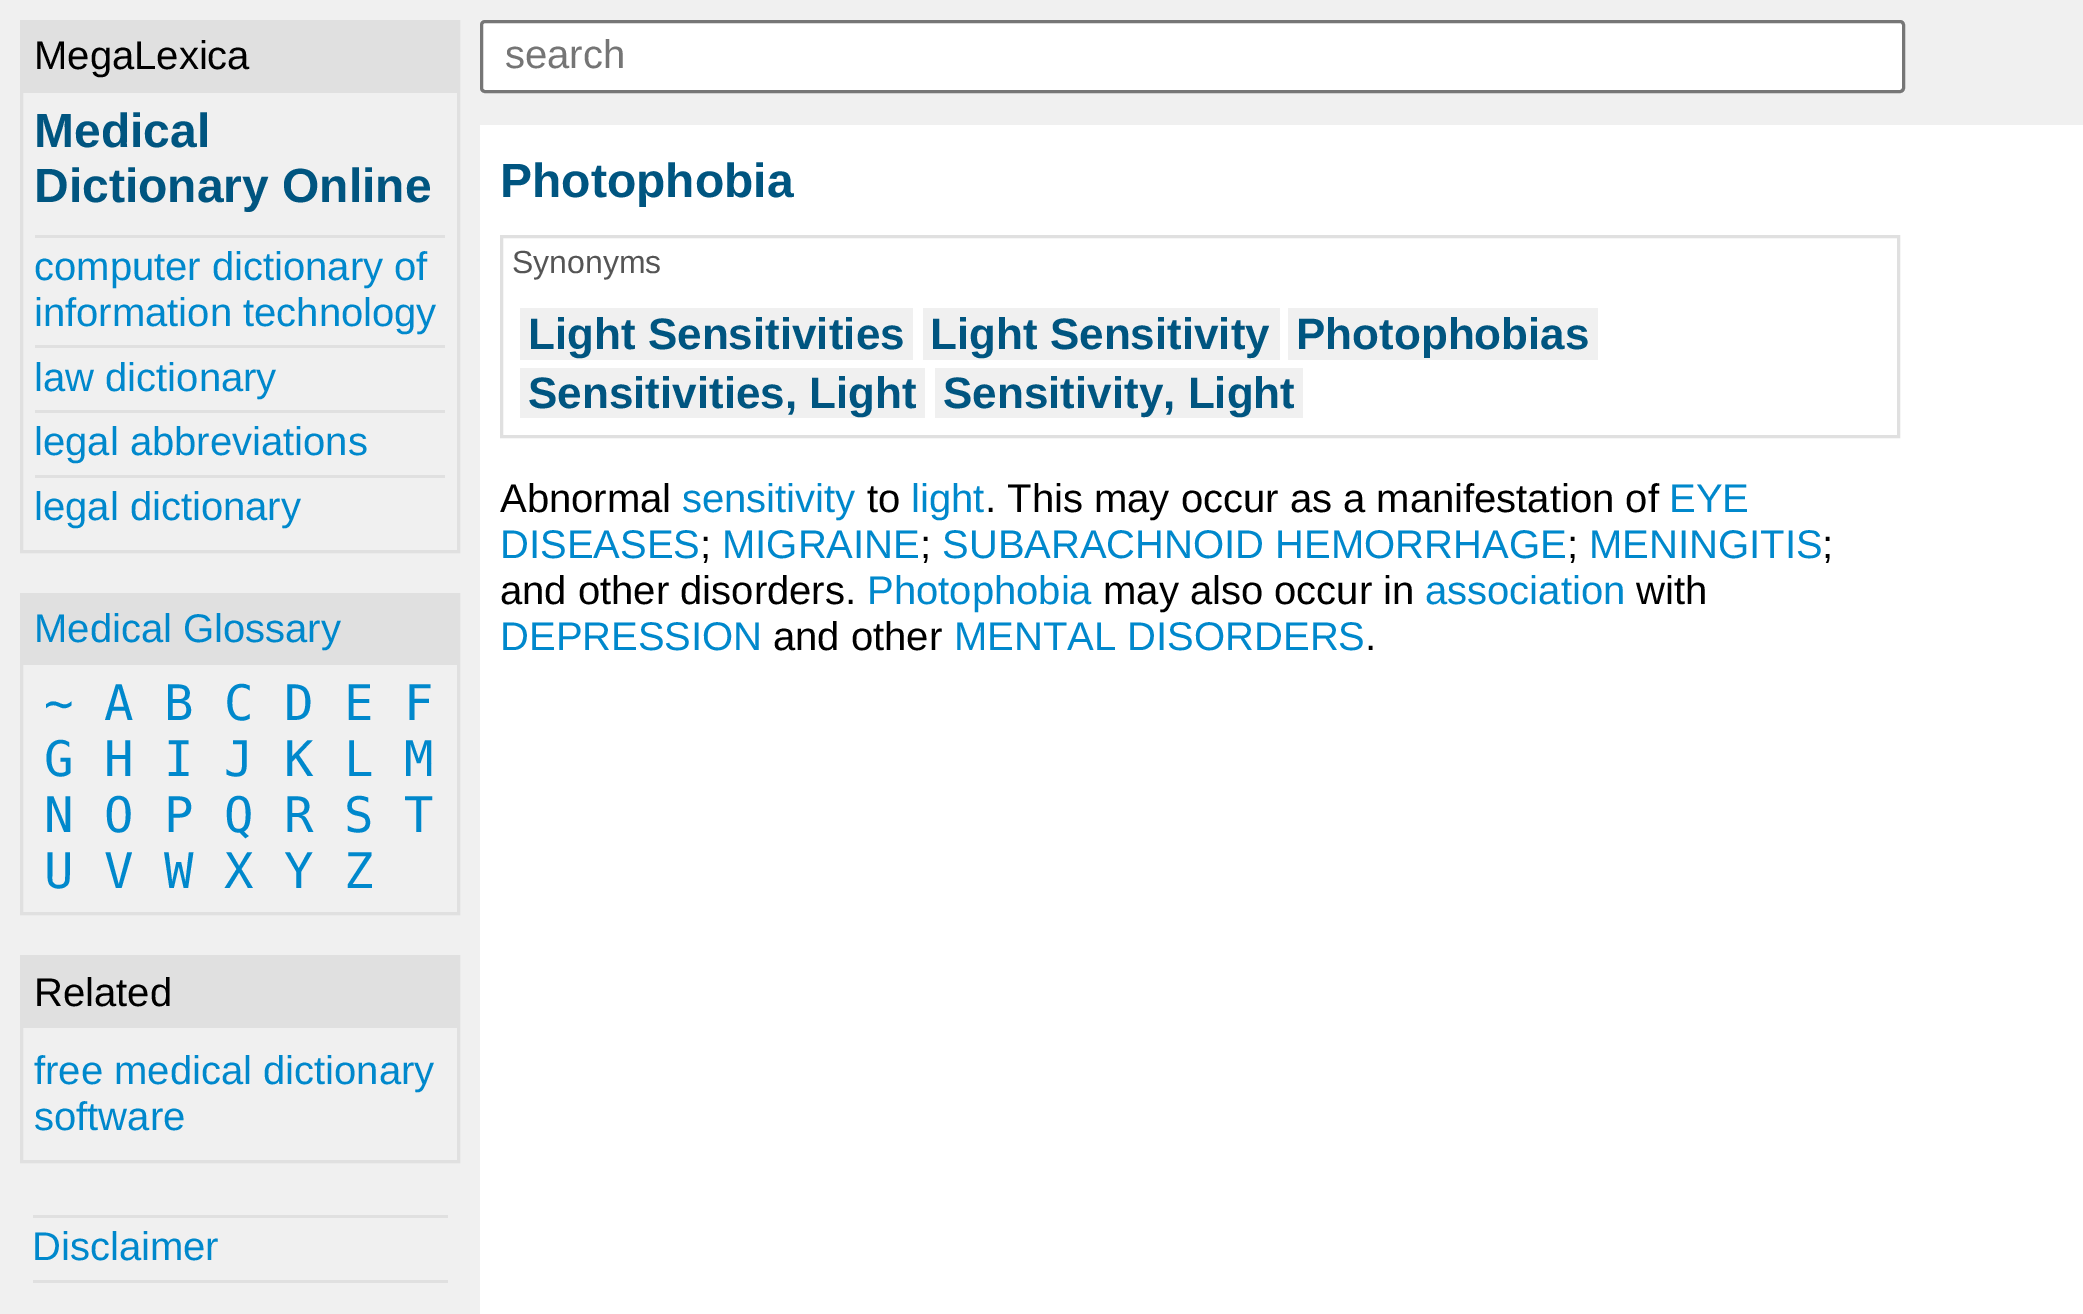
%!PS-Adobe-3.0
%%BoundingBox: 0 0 2083 1314
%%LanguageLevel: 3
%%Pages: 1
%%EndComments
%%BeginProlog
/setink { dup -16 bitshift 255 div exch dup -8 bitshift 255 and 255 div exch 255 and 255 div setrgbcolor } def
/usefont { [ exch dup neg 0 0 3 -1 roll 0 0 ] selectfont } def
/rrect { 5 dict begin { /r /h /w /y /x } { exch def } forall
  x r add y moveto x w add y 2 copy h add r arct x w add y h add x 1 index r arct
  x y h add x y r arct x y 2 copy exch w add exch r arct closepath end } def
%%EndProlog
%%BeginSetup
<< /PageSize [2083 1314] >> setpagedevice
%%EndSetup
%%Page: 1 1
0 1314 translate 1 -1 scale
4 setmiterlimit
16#FFFFFF setink
0 0 2083 1314 rectfill
16#F0F0F0 setink
0 0 480 1314 rectfill
16#E0E0E0 setink
3 setlinewidth
21.5 21.5 437 530 rectstroke
23 23 434 70 rectfill
/LiberationSans-Regular 40 usefont
16#000000 setink
34 69 moveto (MegaLexica) show
/LiberationSans-Bold 48 usefont
16#005580 setink
34 147 moveto (Medical) show
34 202 moveto (Dictionary Online) show
16#E0E0E0 setink
35 235 410 3 rectfill
/LiberationSans-Regular 40 usefont
16#0088CC setink
34 280 moveto (computer dictionary of) show
34 326 moveto (information technology) show
16#E0E0E0 setink
35 345 410 3 rectfill
16#0088CC setink
34 391 moveto (law dictionary) show
16#E0E0E0 setink
35 410 410 3 rectfill
16#0088CC setink
34 455 moveto (legal abbreviations) show
16#E0E0E0 setink
35 475 410 3 rectfill
16#0088CC setink
34 520 moveto (legal dictionary) show
16#E0E0E0 setink
21.5 594.5 437 319 rectstroke
23 596 434 69 rectfill
16#0088CC setink
34 642 moveto (Medical Glossary) show
/DejaVuSansMono-Regular 49 usefont
[
    [(~) 44 720]
    [(A) 104 720]
    [(B) 164 720]
    [(C) 224 720]
    [(D) 284 720]
    [(E) 344 720]
    [(F) 404 720]
    [(G) 44 776]
    [(H) 104 776]
    [(I) 164 776]
    [(J) 224 776]
    [(K) 284 776]
    [(L) 344 776]
    [(M) 404 776]
    [(N) 44 832]
    [(O) 104 832]
    [(P) 164 832]
    [(Q) 224 832]
    [(R) 284 832]
    [(S) 344 832]
    [(T) 404 832]
    [(U) 44 888]
    [(V) 104 888]
    [(W) 164 888]
    [(X) 224 888]
    [(Y) 284 888]
    [(Z) 344 888]
] { aload pop moveto show } forall
16#E0E0E0 setink
21.5 956.5 437 205 rectstroke
23 958 434 70 rectfill
/LiberationSans-Regular 40 usefont
16#000000 setink
34 1006 moveto (Related) show
16#0088CC setink
34 1084 moveto (free medical dictionary) show
34 1130 moveto (software) show
16#E0E0E0 setink
33 1215 415 3 rectfill
16#0088CC setink
32 1260 moveto (Disclaimer) show
16#E0E0E0 setink
33 1280 415 3 rectfill
16#F0F0F0 setink
480 0 1603 125 rectfill
16#FFFFFF setink
481.5 21.5 1422 70 3.5 rrect gsave fill grestore
16#767676 setink
stroke
16#757575 setink
505 68 moveto (search) show
/LiberationSans-Bold 48 usefont
16#005580 setink
500 197 moveto (Photophobia) show
16#E0E0E0 setink
501.5 236.5 1397 200 rectstroke
/LiberationSans-Regular 32 usefont
16#555555 setink
512 273 moveto (Synonyms) show
16#F0F0F0 setink
520 308 393 52 rectfill
/LiberationSans-Bold 44 usefont
16#005580 setink
528 349 moveto (Light Sensitivities) show
16#F0F0F0 setink
923 308 357 52 rectfill
16#005580 setink
930 349 moveto (Light Sensitivity) show
16#F0F0F0 setink
1288 308 310 52 rectfill
16#005580 setink
1296 349 moveto (Photophobias) show
16#F0F0F0 setink
520 368 405 50 rectfill
16#005580 setink
528 408 moveto (Sensitivities, Light) show
16#F0F0F0 setink
935 368 368 50 rectfill
16#005580 setink
943 408 moveto (Sensitivity, Light) show
/LiberationSans-Regular 40 usefont
16#000000 setink
500 512 moveto (Abnormal) show
16#0088CC setink
682 512 moveto (sensitivity) show
16#000000 setink
867 512 moveto (to) show
16#0088CC setink
911 512 moveto (light) show
16#000000 setink
985 512 moveto (. This may occur as a manifestation of) show
16#0088CC setink
1669 512 moveto (EYE) show
500 558 moveto (DISEASES) show
16#000000 setink
700 558 moveto (;) show
16#0088CC setink
722 558 moveto (MIGRAINE) show
16#000000 setink
920 558 moveto (;) show
16#0088CC setink
942 558 moveto (SUBARACHNOID HEMORRHAGE) show
16#000000 setink
1567 558 moveto (;) show
16#0088CC setink
1589 558 moveto (MENINGITIS) show
16#000000 setink
1822 558 moveto (;) show
500 604 moveto (and other disorders.) show
16#0088CC setink
867 604 moveto (Photophobia) show
16#000000 setink
1103 604 moveto (may also occur in) show
16#0088CC setink
1425 604 moveto (association) show
16#000000 setink
1636 604 moveto (with) show
16#0088CC setink
500 650 moveto (DEPRESSION) show
16#000000 setink
773 650 moveto (and other) show
16#0088CC setink
954 650 moveto (MENTAL DISORDERS) show
16#000000 setink
1365 650 moveto (.) show
showpage
%%EOF
